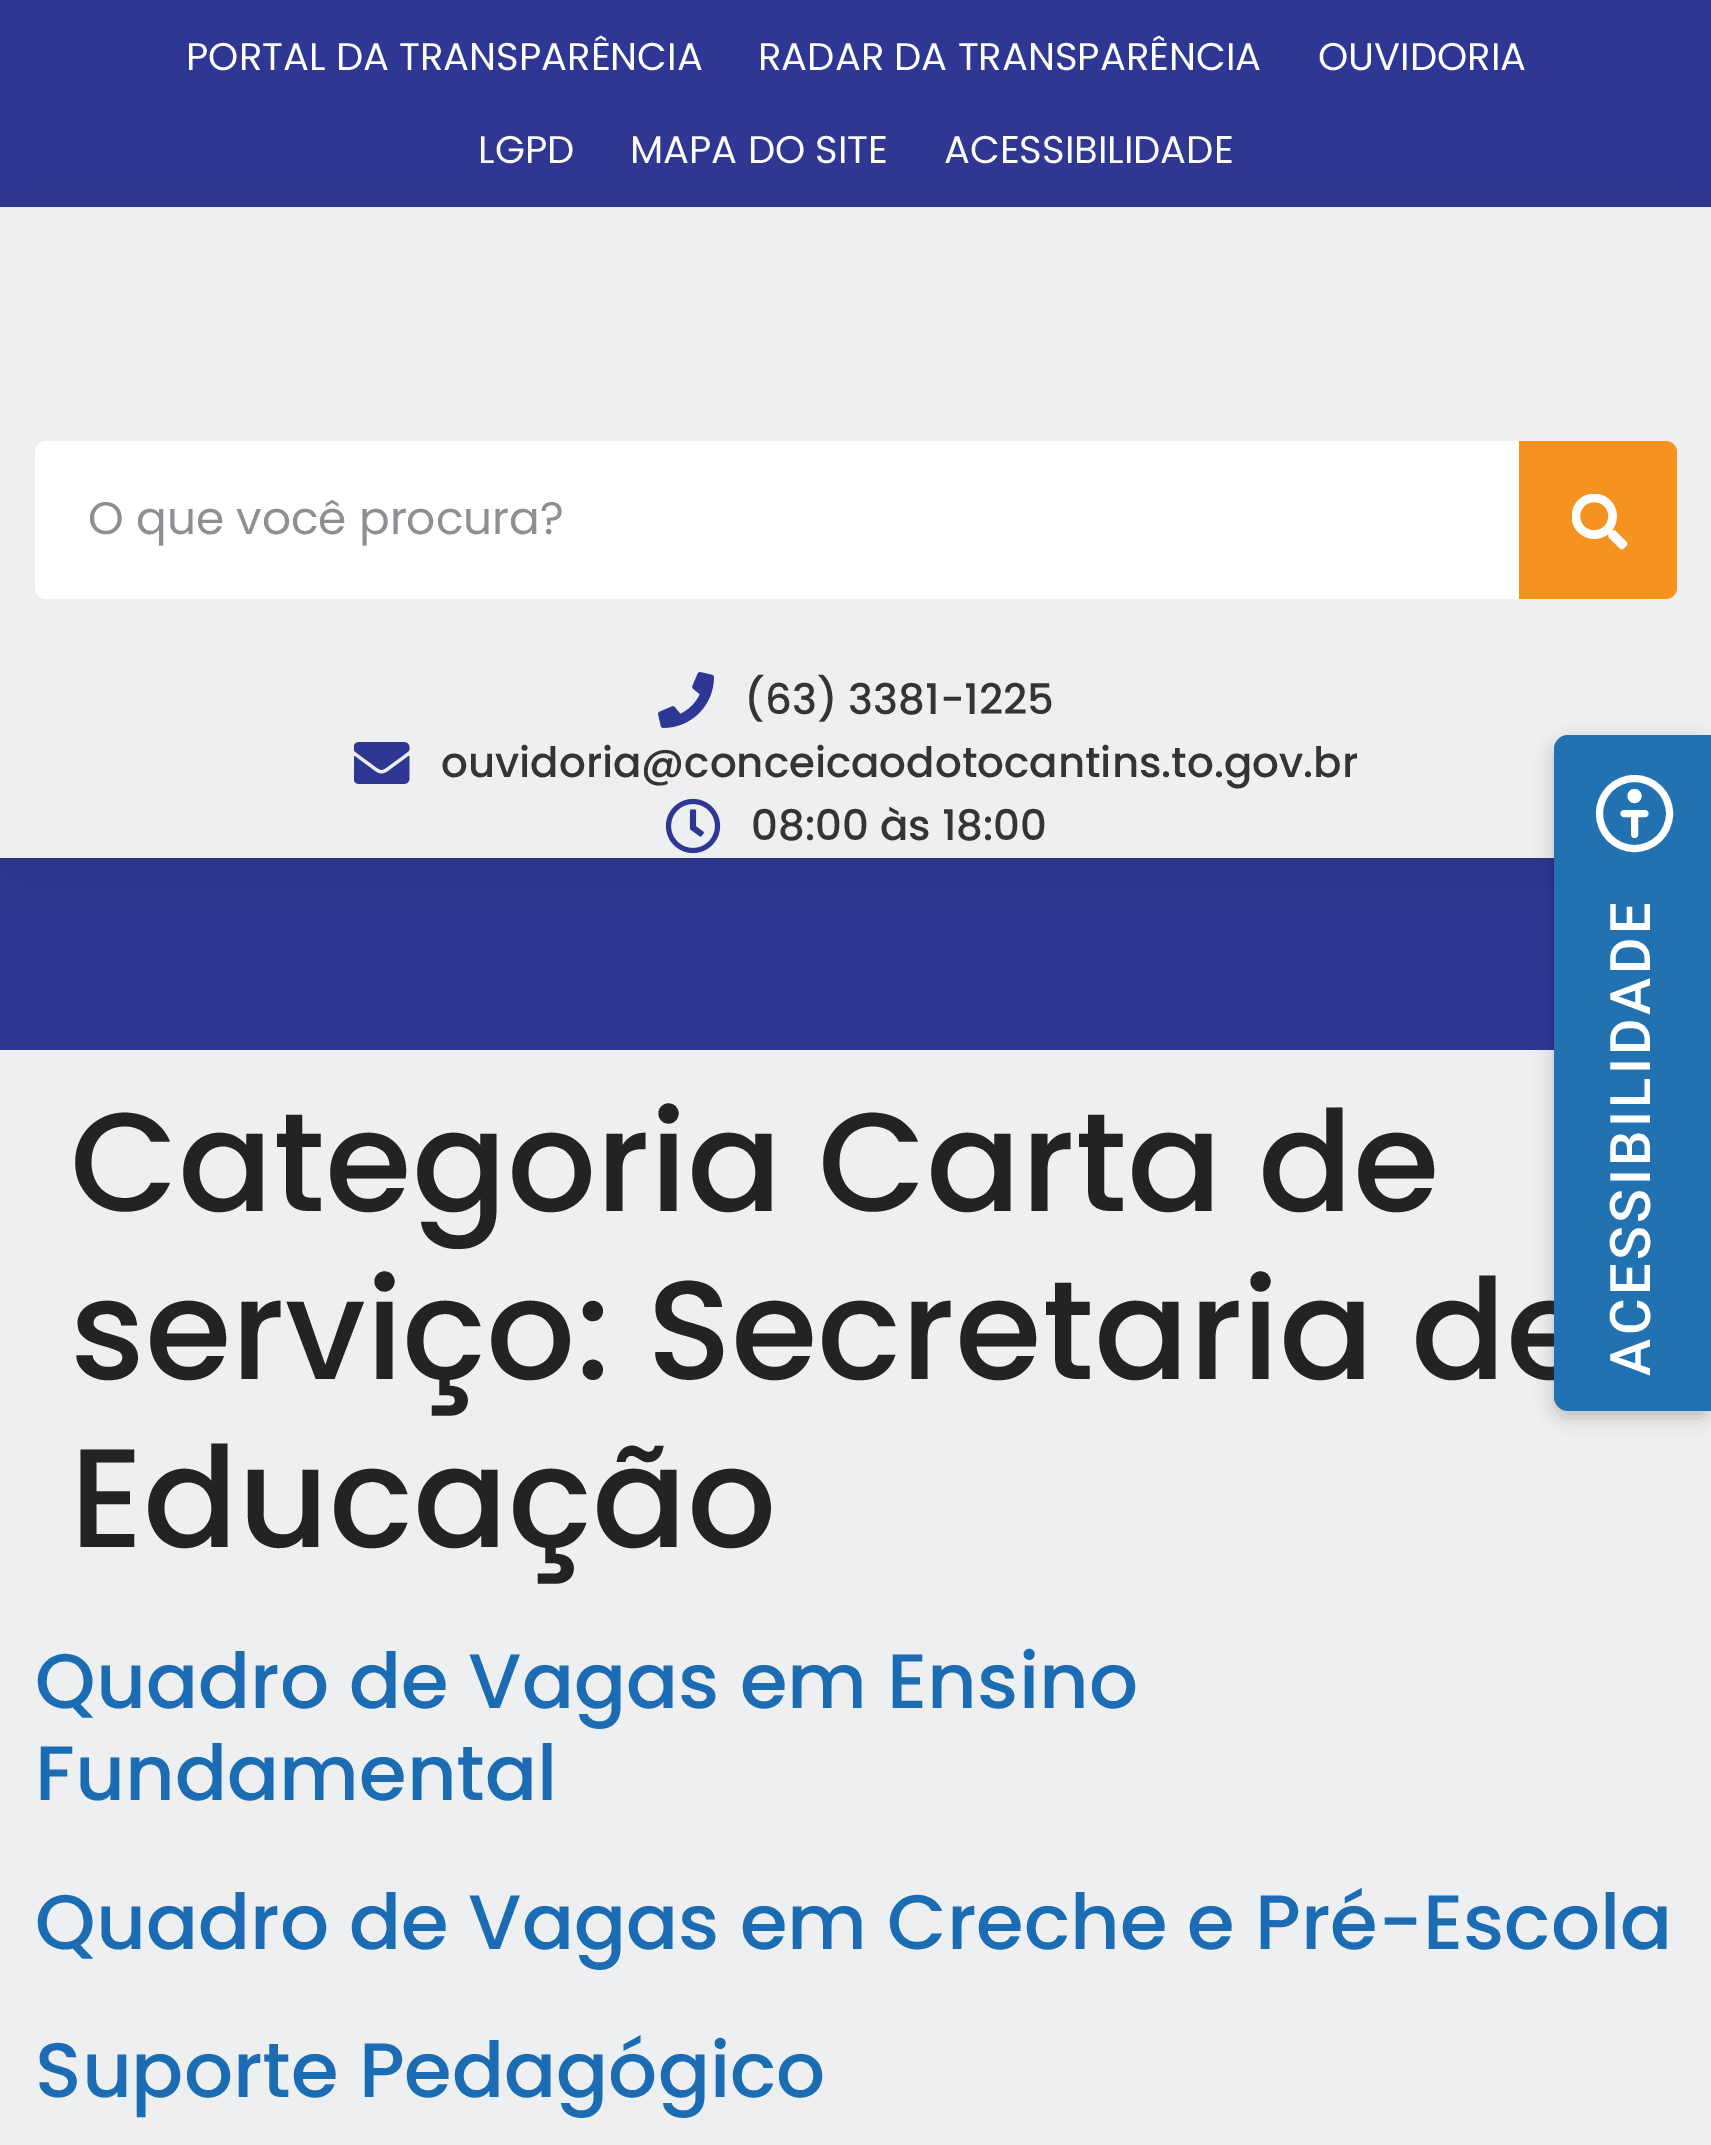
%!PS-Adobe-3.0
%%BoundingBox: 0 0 1711 2145
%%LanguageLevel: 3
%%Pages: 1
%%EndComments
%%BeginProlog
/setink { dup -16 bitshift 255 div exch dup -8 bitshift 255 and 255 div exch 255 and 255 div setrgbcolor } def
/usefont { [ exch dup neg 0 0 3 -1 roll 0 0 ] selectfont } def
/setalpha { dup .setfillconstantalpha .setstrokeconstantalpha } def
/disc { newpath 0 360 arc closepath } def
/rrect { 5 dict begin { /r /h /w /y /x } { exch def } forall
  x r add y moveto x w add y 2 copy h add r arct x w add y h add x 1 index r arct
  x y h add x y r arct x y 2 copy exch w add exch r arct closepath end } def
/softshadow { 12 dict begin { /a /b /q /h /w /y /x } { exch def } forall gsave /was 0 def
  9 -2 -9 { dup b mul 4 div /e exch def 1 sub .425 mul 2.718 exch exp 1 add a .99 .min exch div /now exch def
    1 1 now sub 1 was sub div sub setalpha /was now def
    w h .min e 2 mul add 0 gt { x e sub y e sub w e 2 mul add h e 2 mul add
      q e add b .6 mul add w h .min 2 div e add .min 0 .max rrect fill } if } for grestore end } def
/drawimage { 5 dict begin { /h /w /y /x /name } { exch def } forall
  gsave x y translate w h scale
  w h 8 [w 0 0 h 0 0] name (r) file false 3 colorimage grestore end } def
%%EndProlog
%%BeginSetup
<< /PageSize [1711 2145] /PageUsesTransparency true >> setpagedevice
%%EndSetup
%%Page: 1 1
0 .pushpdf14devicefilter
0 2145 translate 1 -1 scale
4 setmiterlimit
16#EDEFF0 setink
0 0 1711 2145 rectfill
16#2F3795 setink
0 0 1711 207 rectfill
/Poppins-Regular 38.5 usefont
16#FFFFFF setink
[
    [(PORTAL DA TRANSPARÊNCIA) 186 70]
    [(RADAR DA TRANSPARÊNCIA) 758 70]
    [(OUVIDORIA) 1318 70]
    [(LGPD) 478 163]
    [(MAPA DO SITE) 630 163]
    [(ACESSIBILIDADE) 944 163]
] { aload pop moveto show } forall
16#2F3795 setink
0 858 1554 192 rectfill
gsave
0 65 moveto 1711 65 lineto 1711 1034 lineto 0 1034 lineto closepath 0 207 moveto 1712 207 lineto 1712 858 lineto 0 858 lineto closepath eoclip newpath
16#000000 setink
0 224 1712 651 0 52.5 0.1 softshadow
grestore
16#FFFFFF setink
35 441 1642 158 11 rrect fill
/Poppins-Regular 45.5 usefont
16#8C8F93 setink
88 534 moveto (O que você procura?) show
16#F69220 setink
1519 441 moveto 1666 441 lineto 1672 441 1677 446 1677 452 curveto 1677 588 lineto 1677 594 1672 599 1666 599 curveto 1519 599 lineto closepath fill
(img1.raw) 1572 494 56 56 drawimage
(img2.raw) 658 672 56 56 drawimage
/Poppins-Medium 42 usefont
16#343434 setink
744 714 moveto (\(63\) 3381-1225) show
(img3.raw) 354 742 56 42 drawimage
441 777 moveto (ouvidoria@conceicaodotocantins.to.gov.br) show
(img4.raw) 665 798 56 56 drawimage
751 840 moveto (08:00 às 18:00) show
16#000000 setink
1554 742 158 676 14 9 0.2 softshadow
/Poppins-Medium 140 usefont
16#232323 setink
70 1379 moveto (serviço: Secretaria de) show
16#2271B1 setink
1568 735 moveto 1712 735 lineto 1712 1411 lineto 1568 1411 lineto 1560.5 1411 1554 1404.5 1554 1397 curveto 1554 749 lineto 1554 741.5 1560.5 735 1568 735 curveto closepath fill
16#FFFFFF setink
7 setlinewidth
1634.5 813.5 35 disc stroke
1634.5 796 3.5 disc stroke
1 setlinecap
1 setlinejoin
1624 813.5 moveto 1645 813.5 lineto 1634.5 813.5 moveto 1634.5 834.5 lineto stroke
/Roboto-Medium 56 usefont
gsave 1650 1376 translate -90 rotate 0 0 moveto 3.5 0 (ACESSIBILIDADE) ashow grestore
/Poppins-Medium 140 usefont
16#232323 setink
70 1211 moveto (Categoria Carta de) show
70 1547 moveto (Educação) show
/Poppins-Medium 77 usefont
16#1C6CB4 setink
[
    [(Quadro de Vagas em Ensino) 35 1708]
    [(Fundamental) 35 1800]
    [(Quadro de Vagas em Creche e Pré-Escola) 35 1949]
    [(Suporte Pedagógico) 35 2097]
] { aload pop moveto show } forall
.poppdf14devicefilter showpage
%%EOF
